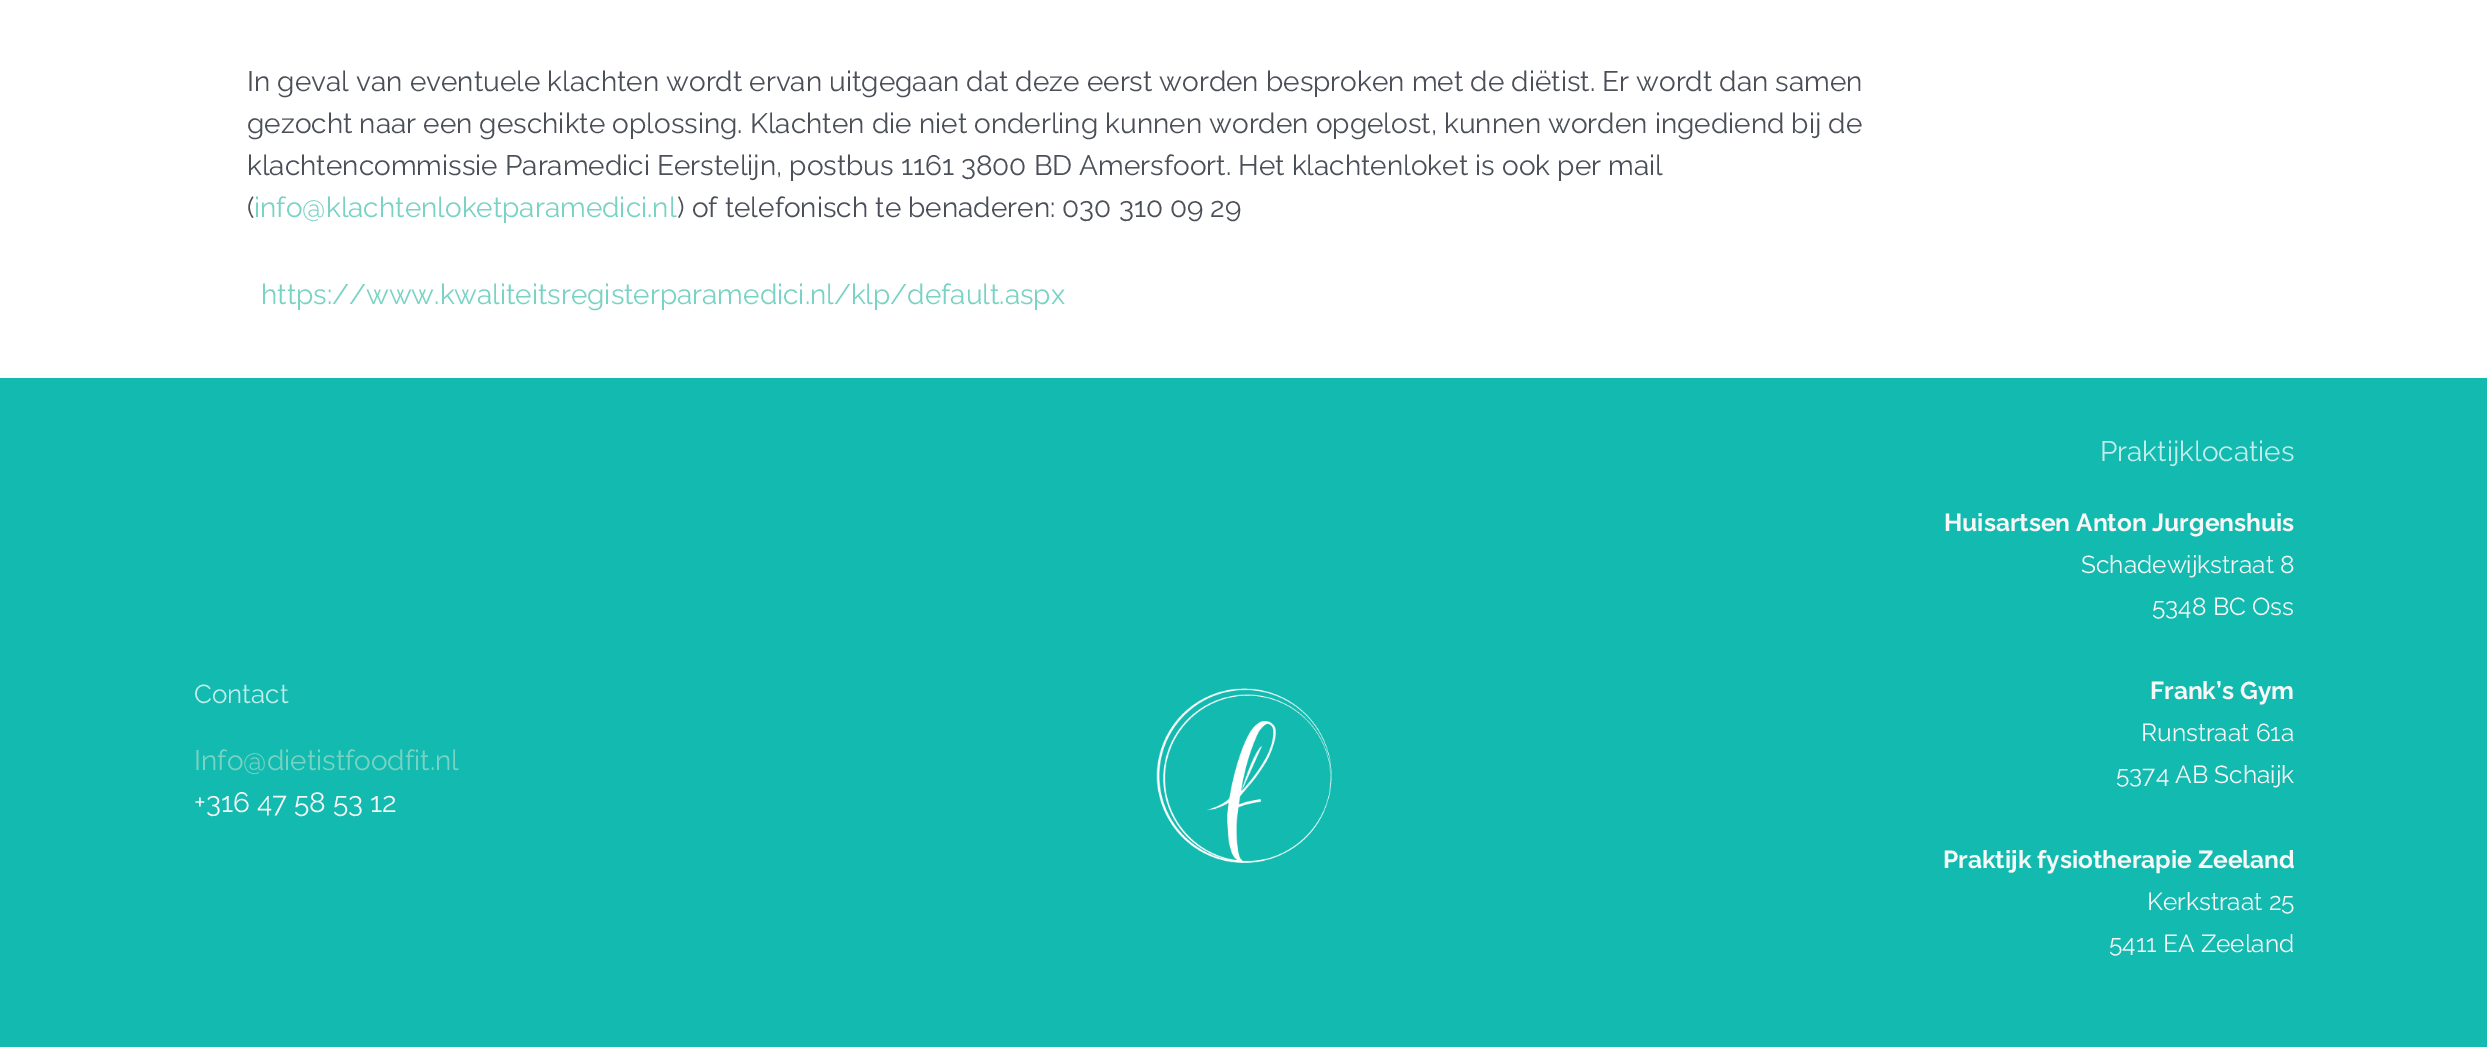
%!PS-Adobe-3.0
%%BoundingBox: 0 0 2487 1047
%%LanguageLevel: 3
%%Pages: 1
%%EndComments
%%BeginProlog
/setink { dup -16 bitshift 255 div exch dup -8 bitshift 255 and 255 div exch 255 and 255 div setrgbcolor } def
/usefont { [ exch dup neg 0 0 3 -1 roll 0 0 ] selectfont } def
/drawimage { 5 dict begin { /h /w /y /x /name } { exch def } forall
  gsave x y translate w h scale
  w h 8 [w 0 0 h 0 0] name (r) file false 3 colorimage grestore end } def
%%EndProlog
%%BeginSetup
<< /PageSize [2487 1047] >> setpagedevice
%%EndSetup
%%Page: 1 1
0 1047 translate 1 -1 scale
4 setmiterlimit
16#FFFFFF setink
0 0 2487 1047 rectfill
/Raleway-Regular 28 usefont
16#4B4F58 setink
[
    [(In geval van eventuele klachten wordt ervan uitgegaan dat deze eerst worden besproken met de diëtist. Er wordt dan samen) 247 91]
    [(gezocht naar een geschikte oplossing. Klachten die niet onderling kunnen worden opgelost, kunnen worden ingediend bij de) 247 133]
    [(klachtencommissie Paramedici Eerstelijn, postbus 1161 3800 BD Amersfoort. Het klachtenloket is ook per mail) 247 175]
    [(\() 247 217]
] { aload pop moveto show } forall
16#79D3C4 setink
254 217 moveto (info@klachtenloketparamedici.nl) show
16#4B4F58 setink
677 217 moveto (\) of telefonisch te benaderen: 030 310 09 29) show
16#79D3C4 setink
261 304 moveto (https://www.kwaliteitsregisterparamedici.nl/klp/default.aspx) show
16#12BAB0 setink
0 378 2487 669 rectfill
/Raleway-Regular 26 usefont
16#C1EDEA setink
194 703 moveto (Contact) show
/Raleway-Regular 28 usefont
16#79D3C4 setink
194 770 moveto (Info@dietistfoodfit.nl) show
16#F7F7F7 setink
194 812 moveto (+316 47 58 53 12) show
(img1.raw) 1156 688 176 175 drawimage
16#C1EDEA setink
2100 461 moveto (Praktijklocaties) show
/Raleway-Bold 24.5 usefont
16#F7F7F7 setink
1944 531 moveto (Huisartsen Anton Jurgenshuis) show
/Raleway-Regular 24.5 usefont
2081 573 moveto (Schadewijkstraat 8) show
2152 615 moveto (5348 BC Oss) show
/Raleway-Bold 24.5 usefont
2150 699 moveto (Frank’s Gym) show
/Raleway-Regular 24.5 usefont
2141 741 moveto (Runstraat 61a) show
2116 783 moveto (5374 AB Schaijk) show
/Raleway-Bold 24.5 usefont
1943 868 moveto (Praktijk fysiotherapie Zeeland) show
/Raleway-Regular 24.5 usefont
2147 910 moveto (Kerkstraat 25) show
2109 952 moveto (5411 EA Zeeland) show
showpage
%%EOF
